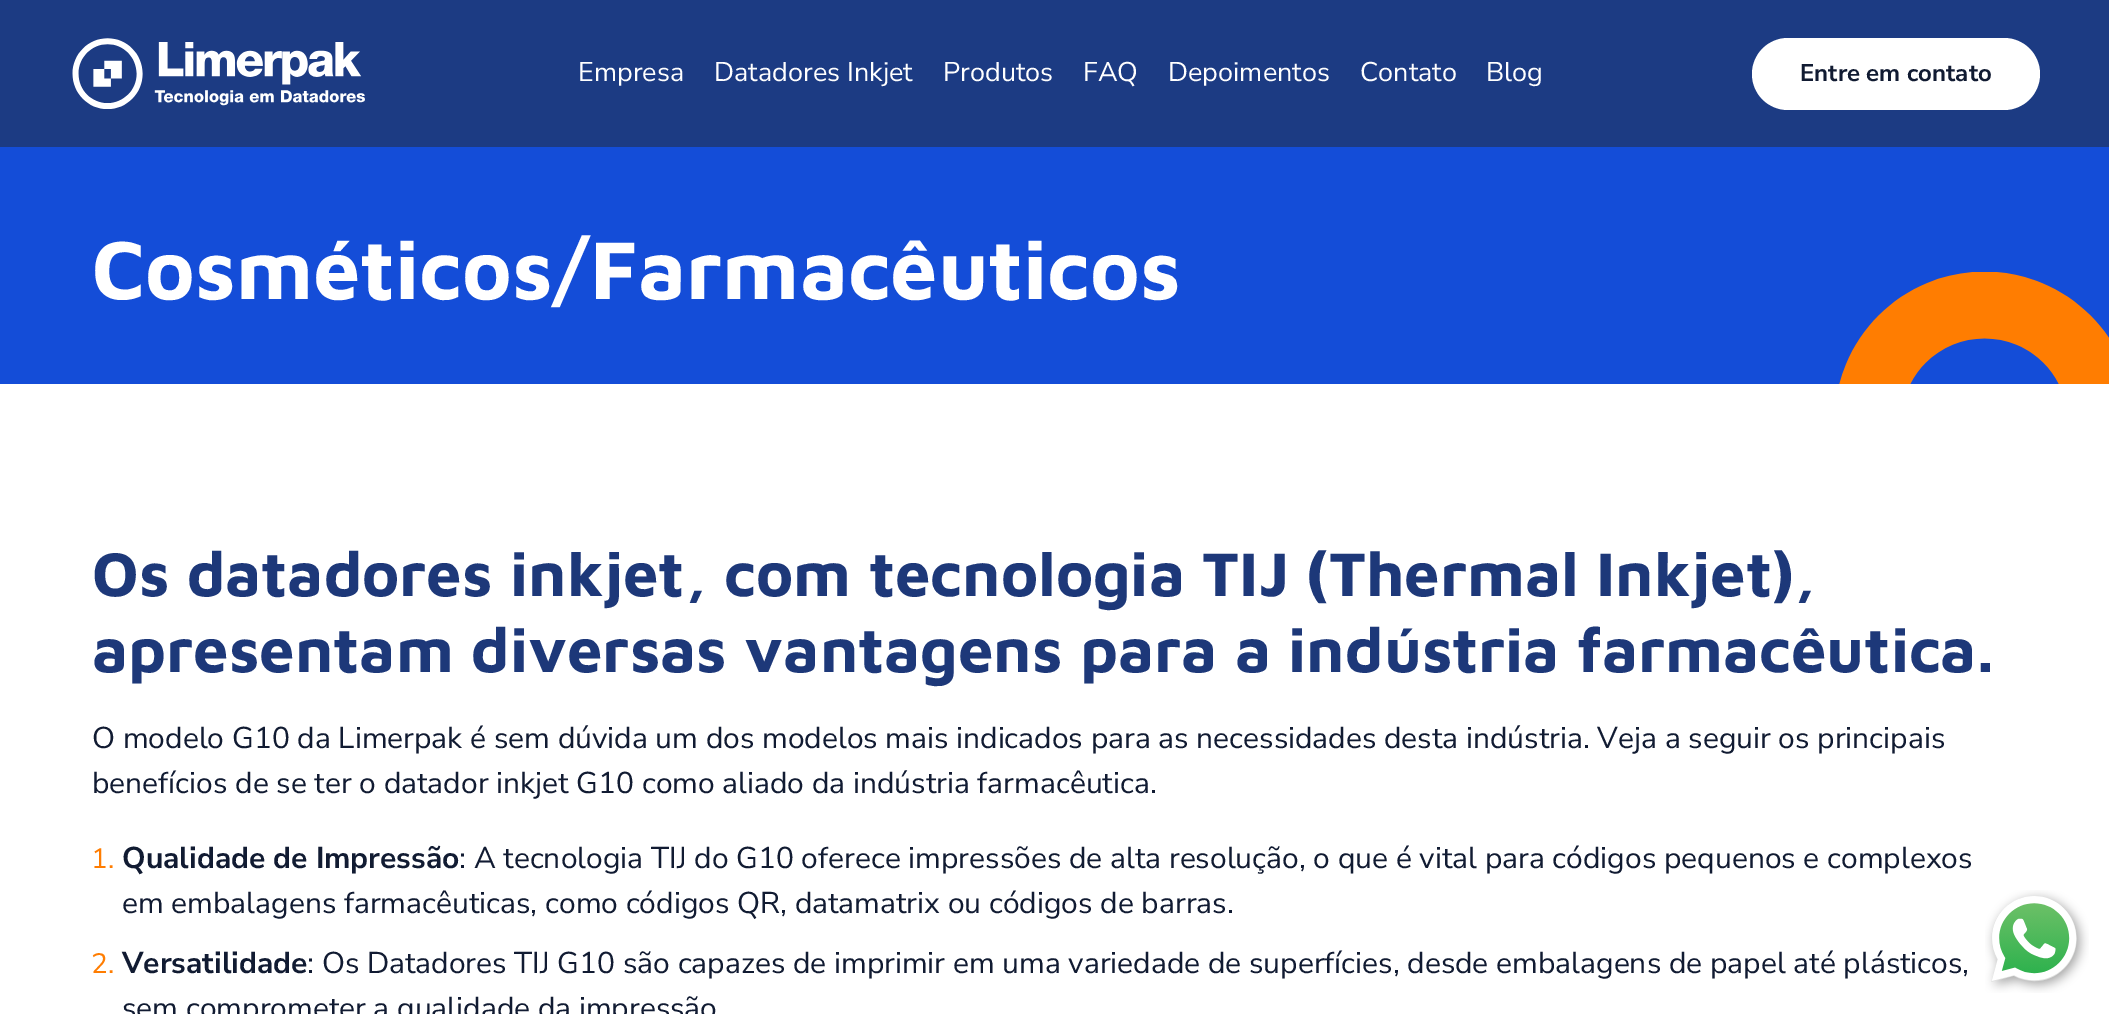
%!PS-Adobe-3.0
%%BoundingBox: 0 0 2109 1014
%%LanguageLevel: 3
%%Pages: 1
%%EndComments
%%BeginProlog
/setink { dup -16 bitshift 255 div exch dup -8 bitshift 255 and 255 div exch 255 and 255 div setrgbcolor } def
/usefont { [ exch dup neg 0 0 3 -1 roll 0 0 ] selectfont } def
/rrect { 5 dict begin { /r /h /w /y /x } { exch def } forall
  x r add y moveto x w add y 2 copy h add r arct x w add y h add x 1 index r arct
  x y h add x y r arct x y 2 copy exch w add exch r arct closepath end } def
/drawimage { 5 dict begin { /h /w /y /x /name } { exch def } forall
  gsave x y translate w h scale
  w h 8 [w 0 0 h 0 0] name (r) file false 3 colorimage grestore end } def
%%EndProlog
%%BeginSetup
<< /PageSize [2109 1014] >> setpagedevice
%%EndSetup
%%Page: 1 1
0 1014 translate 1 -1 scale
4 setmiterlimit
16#FFFFFF setink
0 0 2109 1014 rectfill
16#1C3B83 setink
0 0 2109 147 rectfill
(img1.raw) 72 38 293 71 drawimage
/NunitoSans-Regular 27 usefont
16#FFFFFF setink
[
    [(Empresa) 578 81]
    [(Datadores Inkjet) 714 81]
    [(Produtos) 943 81]
    [(FAQ) 1083 81]
    [(Depoimentos) 1168 81]
    [(Contato) 1360 81]
    [(Blog) 1486 81]
] { aload pop moveto show } forall
1752 38 288 72 36 rrect fill
/NunitoSans-Bold 24 usefont
16#111B32 setink
1800 81 moveto (Entre em contato) show
16#144DD8 setink
0 147 2109 237 rectfill
/MavenPro-Bold 84.4 usefont
16#FFFFFF setink
92 299 moveto (Cosméticos/Farmacêuticos) show
(img2.raw) 1839 272 270 112 drawimage
/MavenPro-Bold 63.25 usefont
16#1D3879 setink
92 596 moveto (Os datadores inkjet, com tecnologia TIJ \(Thermal Inkjet\),) show
92 672 moveto (apresentam diversas vantagens para a indústria farmacêutica.) show
/NunitoSans-Regular 30 usefont
16#111B32 setink
92 748 moveto (O modelo G10 da Limerpak é sem dúvida um dos modelos mais indicados para as necessidades desta indústria. Veja a seguir os principais) show
92 793 moveto (benefícios de se ter o datador inkjet G10 como aliado da indústria farmacêutica.) show
/NunitoSans-Regular 28 usefont
16#FF7D01 setink
91 868 moveto (1.) show
/NunitoSans-Bold 30 usefont
16#111B32 setink
122 868 moveto (Qualidade de Impressão) show
/NunitoSans-Regular 30 usefont
459 868 moveto (: A tecnologia TIJ do G10 oferece impressões de alta resolução, o que é vital para códigos pequenos e complexos) show
122 913 moveto (em embalagens farmacêuticas, como códigos QR, datamatrix ou códigos de barras.) show
/NunitoSans-Regular 28 usefont
16#FF7D01 setink
91 973 moveto (2.) show
/NunitoSans-Bold 30 usefont
16#111B32 setink
122 973 moveto (Versatilidade) show
/NunitoSans-Regular 30 usefont
307 973 moveto (: Os Datadores TIJ G10 são capazes de imprimir em uma variedade de superfícies, desde embalagens de papel até plásticos,) show
122 1018 moveto (sem comprometer a qualidade da impressão) show
(img3.raw) 1985 890 104 103 drawimage
showpage
%%EOF
